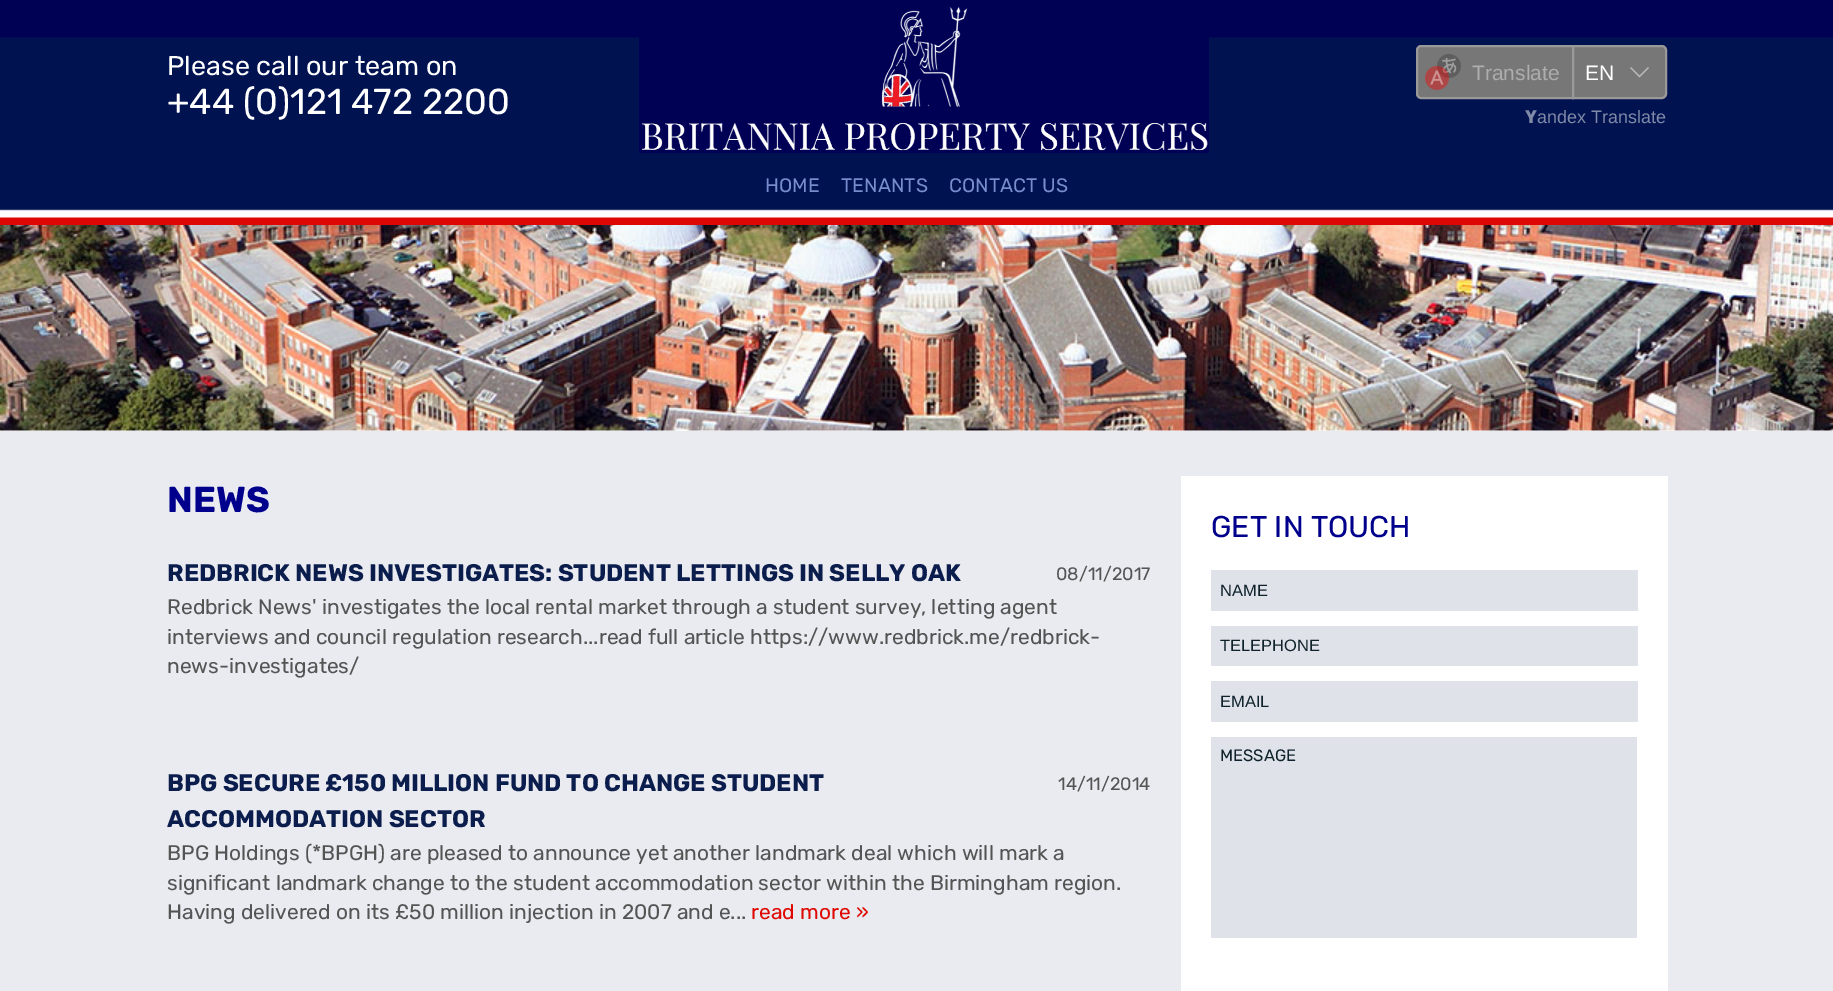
%!PS-Adobe-3.0
%%BoundingBox: 0 0 1833 991
%%LanguageLevel: 3
%%Pages: 1
%%EndComments
%%BeginProlog
/setink { dup -16 bitshift 255 div exch dup -8 bitshift 255 and 255 div exch 255 and 255 div setrgbcolor } def
/usefont { [ exch dup neg 0 0 3 -1 roll 0 0 ] selectfont } def
/drawimage { 5 dict begin { /h /w /y /x /name } { exch def } forall
  gsave x y translate w h scale
  w h 8 [w 0 0 h 0 0] name (r) file false 3 colorimage grestore end } def
%%EndProlog
%%BeginSetup
<< /PageSize [1833 991] >> setpagedevice
%%EndSetup
%%Page: 1 1
0 991 translate 1 -1 scale
4 setmiterlimit
16#E9EBF0 setink
0 0 1833 991 rectfill
16#FFFFFF setink
0 430 1833 1 rectfill
(img1.raw) 0 225 1833 206 drawimage
16#000055 setink
0 0 1833 211 rectfill
(img2.raw) 0 37 1833 188 drawimage
/Rubik-Regular 27 usefont
16#FFFFFF setink
167 75 moveto (Please call our team on) show
/Rubik-Regular 36 usefont
167 114 moveto (+44 \(0\)121 472 2200) show
(img3.raw) 639 7 570 146 drawimage
16#777777 setink
1421 46 moveto 1573 46 lineto 1573 98 lineto 1421 98 lineto 1419 98 1417 96 1417 94 curveto 1417 50 lineto 1417 48 1419 46 1421 46 curveto closepath gsave fill grestore
16#999999 setink
2 setlinewidth
stroke
(img4.raw) 1425 54 36 36 drawimage
/LiberationSans-Regular 21 usefont
16#ADADAD setink
1472 80 moveto (Translate) show
16#777777 setink
1573 46 moveto 1662 46 lineto 1664 46 1666 48 1666 50 curveto 1666 94 lineto 1666 96 1664 98 1662 98 curveto 1573 98 lineto closepath gsave fill grestore
16#999999 setink
stroke
16#FFFFFF setink
1585 80 moveto (EN) show
(img5.raw) 1630 67 19 11 drawimage
/NotoSans-Black 18 usefont
16#8089A7 setink
1525 123 moveto (Y) show
/LiberationSans-Regular 18 usefont
1537 123 moveto (andex Translate) show
/Rubik-Regular 19.5 usefont
16#788DCD setink
[
    [(HOME) 765 192]
    [(TENANTS) 841 192]
    [(CONTACT US) 949 192]
] { aload pop moveto show } forall
/Rubik-Bold 36 usefont
16#00008C setink
167 512 moveto (NEWS) show
/Rubik-Bold 24 usefont
16#0B1D4D setink
167 581 moveto (REDBRICK NEWS INVESTIGATES: STUDENT LETTINGS IN SELLY OAK) show
/Rubik-Regular 18 usefont
16#545454 setink
1056 580 moveto (08/11/2017) show
/Rubik-Regular 21 usefont
[
    [(Redbrick News' investigates the local rental market through a student survey, letting agent) 167 614]
    [(interviews and council regulation research...read full article https://www.redbrick.me/redbrick-) 167 644]
    [(news-investigates/) 167 673]
] { aload pop moveto show } forall
/Rubik-Bold 24 usefont
16#0B1D4D setink
167 791 moveto (BPG SECURE £150 MILLION FUND TO CHANGE STUDENT) show
167 827 moveto (ACCOMMODATION SECTOR) show
/Rubik-Regular 18 usefont
16#545454 setink
1058 790 moveto (14/11/2014) show
/Rubik-Regular 21 usefont
[
    [(BPG Holdings \(*BPGH\) are pleased to announce yet another landmark deal which will mark a) 167 860]
    [(significant landmark change to the student accommodation sector within the Birmingham region.) 167 890]
    [(Having delivered on its £50 million injection in 2007 and e...) 167 919]
] { aload pop moveto show } forall
16#DF0703 setink
751 919 moveto (read more ») show
16#FFFFFF setink
1181 476 487 515 rectfill
/Rubik-Regular 30 usefont
16#00008C setink
1211 537 moveto (GET IN TOUCH) show
16#E0E2E9 setink
1211 570 427 41 rectfill
/LiberationSans-Regular 16.5 usefont
16#0F222C setink
1220 596 moveto (NAME) show
16#E0E2E9 setink
1211 626 427 40 rectfill
16#0F222C setink
1220 651 moveto (TELEPHONE) show
16#E0E2E9 setink
1211 681 427 41 rectfill
16#0F222C setink
1220 707 moveto (EMAIL) show
16#E0E2E9 setink
1211 737 426 201 rectfill
/Rubik-Regular 16.5 usefont
16#0F222C setink
1220 761 moveto (MESSAGE) show
showpage
%%EOF
